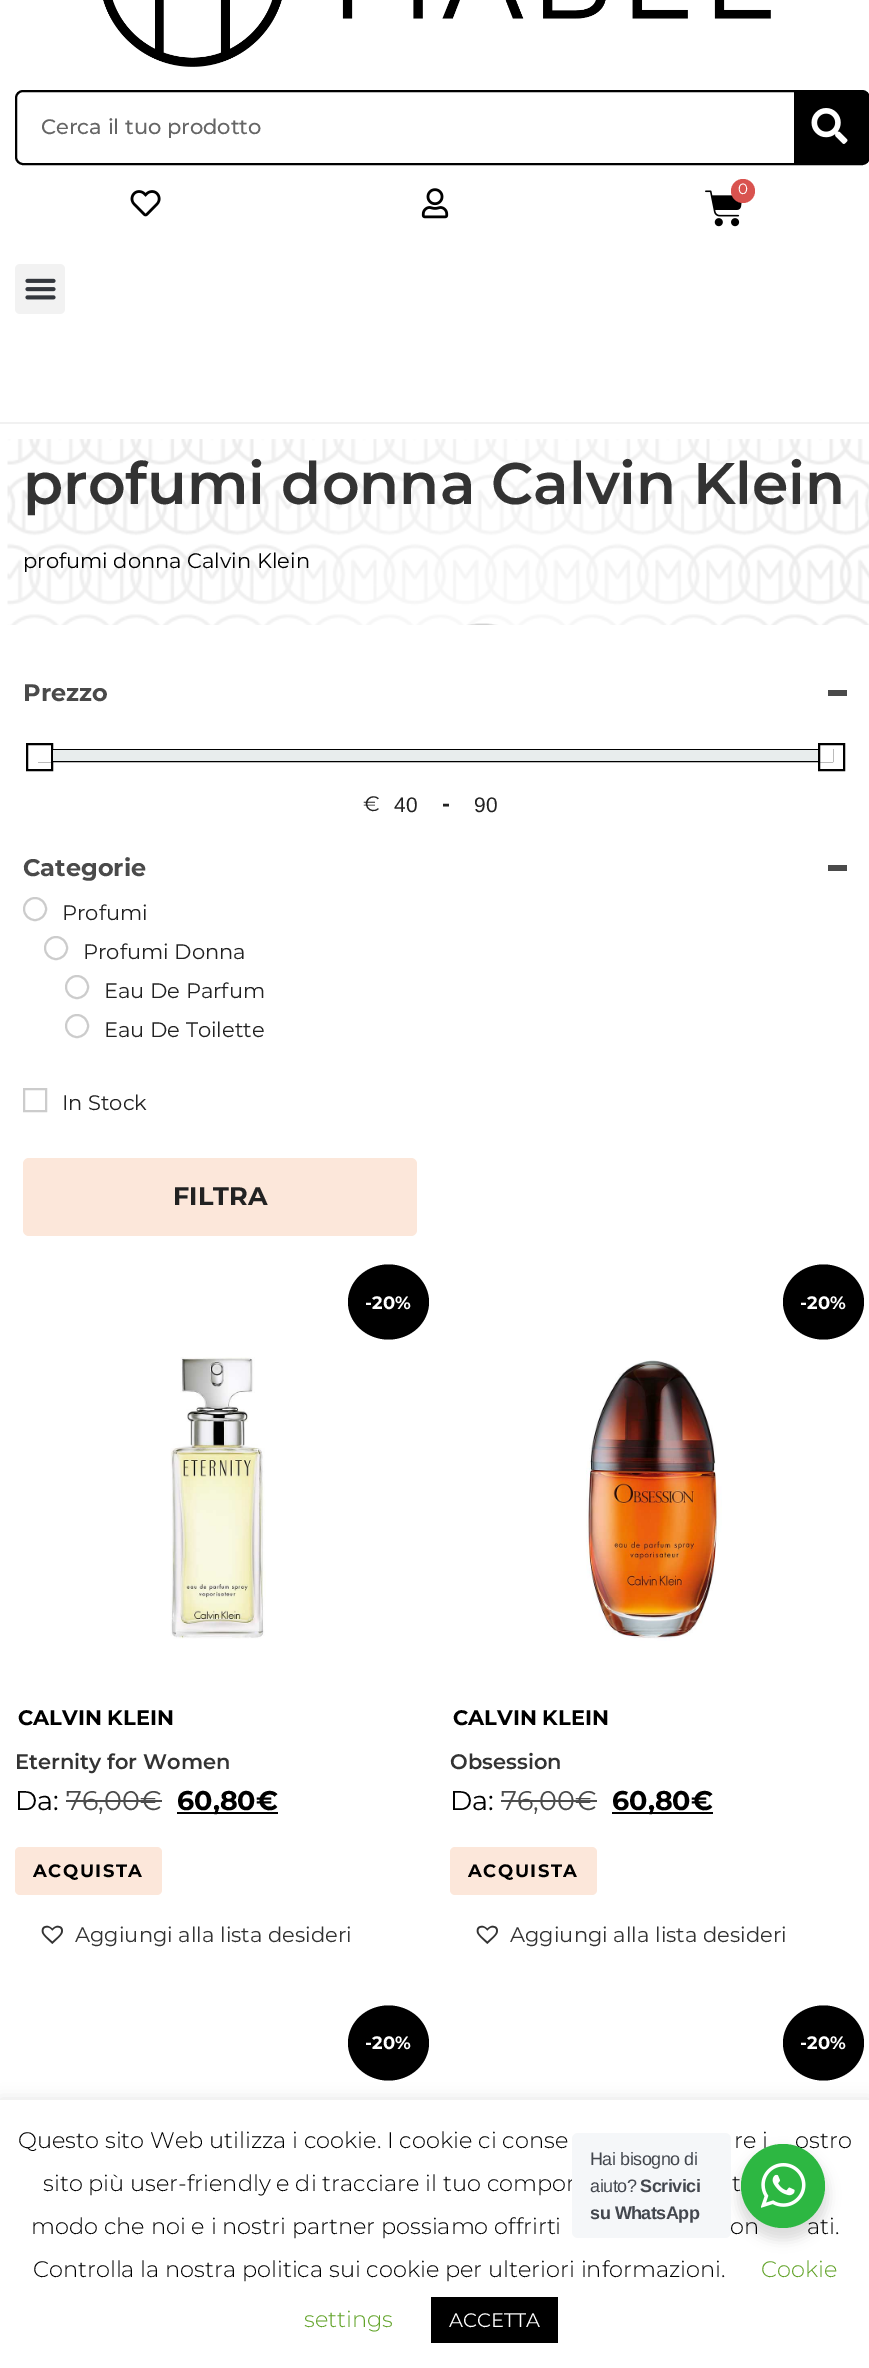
%!PS-Adobe-3.0
%%BoundingBox: 0 0 869 2368
%%LanguageLevel: 3
%%Pages: 1
%%EndComments
%%BeginProlog
/setink { dup -16 bitshift 255 div exch dup -8 bitshift 255 and 255 div exch 255 and 255 div setrgbcolor } def
/usefont { [ exch dup neg 0 0 3 -1 roll 0 0 ] selectfont } def
/setalpha { dup .setfillconstantalpha .setstrokeconstantalpha } def
/disc { newpath 0 360 arc closepath } def
/rrect { 5 dict begin { /r /h /w /y /x } { exch def } forall
  x r add y moveto x w add y 2 copy h add r arct x w add y h add x 1 index r arct
  x y h add x y r arct x y 2 copy exch w add exch r arct closepath end } def
/softshadow { 12 dict begin { /a /b /q /h /w /y /x } { exch def } forall gsave /was 0 def
  9 -2 -9 { dup b mul 4 div /e exch def 1 sub .425 mul 2.718 exch exp 1 add a .99 .min exch div /now exch def
    1 1 now sub 1 was sub div sub setalpha /was now def
    w h .min e 2 mul add 0 gt { x e sub y e sub w e 2 mul add h e 2 mul add
      q e add b .6 mul add w h .min 2 div e add .min 0 .max rrect fill } if } for grestore end } def
/drawimage { 5 dict begin { /h /w /y /x /name } { exch def } forall
  gsave x y translate w h scale
  w h 8 [w 0 0 h 0 0] name (r) file false 3 colorimage grestore end } def
%%EndProlog
%%BeginSetup
<< /PageSize [869 2368] /PageUsesTransparency true >> setpagedevice
%%EndSetup
%%Page: 1 1
0 .pushpdf14devicefilter
0 2368 translate 1 -1 scale
4 setmiterlimit
16#FFFFFF setink
0 0 869 2368 rectfill
16#F1F1F1 setink
0 422 869 2 rectfill
(img1.raw) 103 0 668 67 drawimage
16#000000 setink
2 setlinewidth
16 91 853 73 7 rrect stroke
/Montserrat-Medium 21 usefont
16#666666 setink
41 134 moveto (Cerca il tuo prodotto) show
16#000000 setink
794 92 moveto 863 92 lineto 866.5 92 869 94.5 869 98 curveto 869 158 lineto 869 161.5 866.5 164 863 164 curveto 794 164 lineto closepath fill
(img2.raw) 811 108 37 36 drawimage
(img3.raw) 130 190 31 27 drawimage
(img4.raw) 421 188 28 31 drawimage
(img5.raw) 705 190 37 37 drawimage
16#D9534F setink
743 191 12 disc fill
/Montserrat-Regular 15 usefont
16#FFFFFF setink
738 194 moveto (0) show
16#F2F2F2 setink
15 264 50 50 5 rrect fill
(img6.raw) 25 278 31 22 drawimage
(img7.raw) 7 439 862 186 drawimage
/Montserrat-SemiBold 58.5 usefont
16#333333 setink
23 504 moveto (profumi donna Calvin Klein) show
/Montserrat-Regular 21 usefont
16#000000 setink
23 568 moveto (profumi donna Calvin Klein) show
/Montserrat-Bold 24 usefont
16#4A4A4A setink
23 701 moveto (Prezzo) show
828 690 19 6 rectfill
16#000000 setink
39 750 793 11 rectstroke
16#FFFFFF setink
38 749 13 13 rectfill
16#000000 setink
27 744 25 26 rectstroke
16#E8EDED setink
53 750 765 11 rectfill
16#FFFFFF setink
820 749 13 13 rectfill
16#000000 setink
819 744 25 26 rectstroke
/Montserrat-Regular 21 usefont
16#222222 setink
363 811 moveto (€) show
/LiberationSans-Regular 21 usefont
394 812 moveto (40) show
/Montserrat-Bold 21 usefont
442 811 moveto (-) show
/LiberationSans-Regular 21 usefont
474 812 moveto (90) show
/Montserrat-Bold 24 usefont
16#4A4A4A setink
23 876 moveto (Categorie) show
828 865 19 6 rectfill
16#CCCCCC setink
35 909 11 disc stroke
/Montserrat-Regular 21 usefont
16#222222 setink
62 920 moveto (Profumi) show
16#CCCCCC setink
56 948 11 disc stroke
16#222222 setink
83 959 moveto (Profumi Donna) show
16#CCCCCC setink
77 987 11 disc stroke
16#222222 setink
104 998 moveto (Eau De Parfum) show
16#CCCCCC setink
77 1026 11 disc stroke
16#222222 setink
104 1037 moveto (Eau De Toilette) show
16#CCCCCC setink
24 1089 22 22 rectstroke
16#222222 setink
62 1110 moveto (In Stock) show
16#FCE7DA setink
23 1158 394 78 6 rrect fill
/Montserrat-Bold 25.5 usefont
16#222222 setink
173 1205 moveto (FILTRA) show
16#000000 setink
388.5 1264.5 moveto 411 1264.5 429 1281.5 429 1302 curveto 429 1322.5 411 1339.5 388.5 1339.5 curveto 366 1339.5 348 1322.5 348 1302 curveto 348 1281.5 366 1264.5 388.5 1264.5 curveto closepath fill
/Montserrat-Bold 18 usefont
16#FFFFFF setink
365 1309 moveto (-20%) show
(img8.raw) 170 1357 96 282 drawimage
/Montserrat-Bold 21 usefont
16#000000 setink
18 1725 moveto (CALVIN KLEIN) show
/Montserrat-SemiBold 21 usefont
16#333333 setink
15 1769 moveto (Eternity for Women) show
/Montserrat-Regular 27 usefont
16#000000 setink
15 1810 moveto (Da:) show
16#4A4A4A setink
66 1810 moveto (76,00€) show
16#4D4D4D setink
66 1800 96 2 rectfill
16#000000 setink
177 1812 101 2 rectfill
/Montserrat-Bold 27 usefont
177 1810 moveto (60,80€) show
16#FCE7DA setink
15 1847 147 48 5 rrect fill
/Montserrat-Bold 18 usefont
16#000000 setink
33 1877 moveto 1.5 0 (ACQUISTA) ashow
(img9.raw) 41 1925 22 19 drawimage
/Montserrat-Regular 21 usefont
16#333333 setink
75 1942 moveto (Aggiungi alla lista desideri) show
16#000000 setink
823.5 1264.5 moveto 846 1264.5 864 1281.5 864 1302 curveto 864 1322.5 846 1339.5 823.5 1339.5 curveto 801 1339.5 783 1322.5 783 1302 curveto 783 1281.5 801 1264.5 823.5 1264.5 curveto closepath fill
/Montserrat-Bold 18 usefont
16#FFFFFF setink
800 1309 moveto (-20%) show
(img10.raw) 586 1360 136 281 drawimage
/Montserrat-Bold 21 usefont
16#000000 setink
453 1725 moveto (CALVIN KLEIN) show
/Montserrat-SemiBold 21 usefont
16#333333 setink
450 1769 moveto (Obsession) show
/Montserrat-Regular 27 usefont
16#000000 setink
450 1810 moveto (Da:) show
16#4A4A4A setink
501 1810 moveto (76,00€) show
16#4D4D4D setink
501 1800 96 2 rectfill
16#000000 setink
612 1812 101 2 rectfill
/Montserrat-Bold 27 usefont
612 1810 moveto (60,80€) show
16#FCE7DA setink
450 1847 147 48 5 rrect fill
/Montserrat-Bold 18 usefont
16#000000 setink
468 1877 moveto 1.5 0 (ACQUISTA) ashow
(img11.raw) 476 1925 22 19 drawimage
/Montserrat-Regular 21 usefont
16#333333 setink
510 1942 moveto (Aggiungi alla lista desideri) show
16#000000 setink
388.5 2005.5 moveto 411 2005.5 429 2022.5 429 2043 curveto 429 2063.5 411 2080.5 388.5 2080.5 curveto 366 2080.5 348 2063.5 348 2043 curveto 348 2022.5 366 2005.5 388.5 2005.5 curveto closepath fill
/Montserrat-Bold 18 usefont
16#FFFFFF setink
365 2049 moveto (-20%) show
16#000000 setink
823.5 2005.5 moveto 846 2005.5 864 2022.5 864 2043 curveto 864 2063.5 846 2080.5 823.5 2080.5 curveto 801 2080.5 783 2063.5 783 2043 curveto 783 2022.5 801 2005.5 823.5 2005.5 curveto closepath fill
16#FFFFFF setink
800 2049 moveto (-20%) show
16#ACABAB setink
0 2099 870 268 0 7.5 0.3 softshadow
16#FFFFFF setink
0 2100 869 268 rectfill
/Montserrat-Light 22.5 usefont
16#000000 setink
[
    [(Questo sito Web utilizza i cookie. I cookie ci conse) 18 2148]
    [(re i) 734 2148]
    [(ostro) 795 2148]
    [(sito più user-friendly e di tracciare il tuo compor) 43 2191]
    [(t) 732 2191]
    [(modo che noi e i nostri partner possiamo offrirti) 31 2234]
    [(on) 730 2234]
    [(ati.) 807 2234]
    [(Controlla la nostra politica sui cookie per ulteriori informazioni.) 33 2277]
] { aload pop moveto show } forall
16#62A329 setink
761 2277 moveto (Cookie) show
304 2327 moveto (settings) show
16#000000 setink
431 2297 127 46 rectfill
/Montserrat-Regular 19.5 usefont
16#FFFFFF setink
449 2327 moveto (ACCETTA) show
16#000000 setink
738 2150 90 90 45 6 0.14 softshadow
16#F5F7F9 setink
572 2133 159 105 6 rrect fill
/LiberationSans-Regular 18 usefont
16#43474E setink
590 2165 moveto -0.5 0 (Hai bisogno di) ashow
590 2192 moveto -0.5 0 (aiuto?) ashow
/LiberationSans-Bold 18 usefont
640 2192 moveto -0.5 0 (Scrivici) ashow
590 2219 moveto -0.5 0 (su WhatsApp) ashow
16#2DB742 setink
783 2186 42 disc fill
(img12.raw) 761 2163 45 45 drawimage
.poppdf14devicefilter showpage
%%EOF
